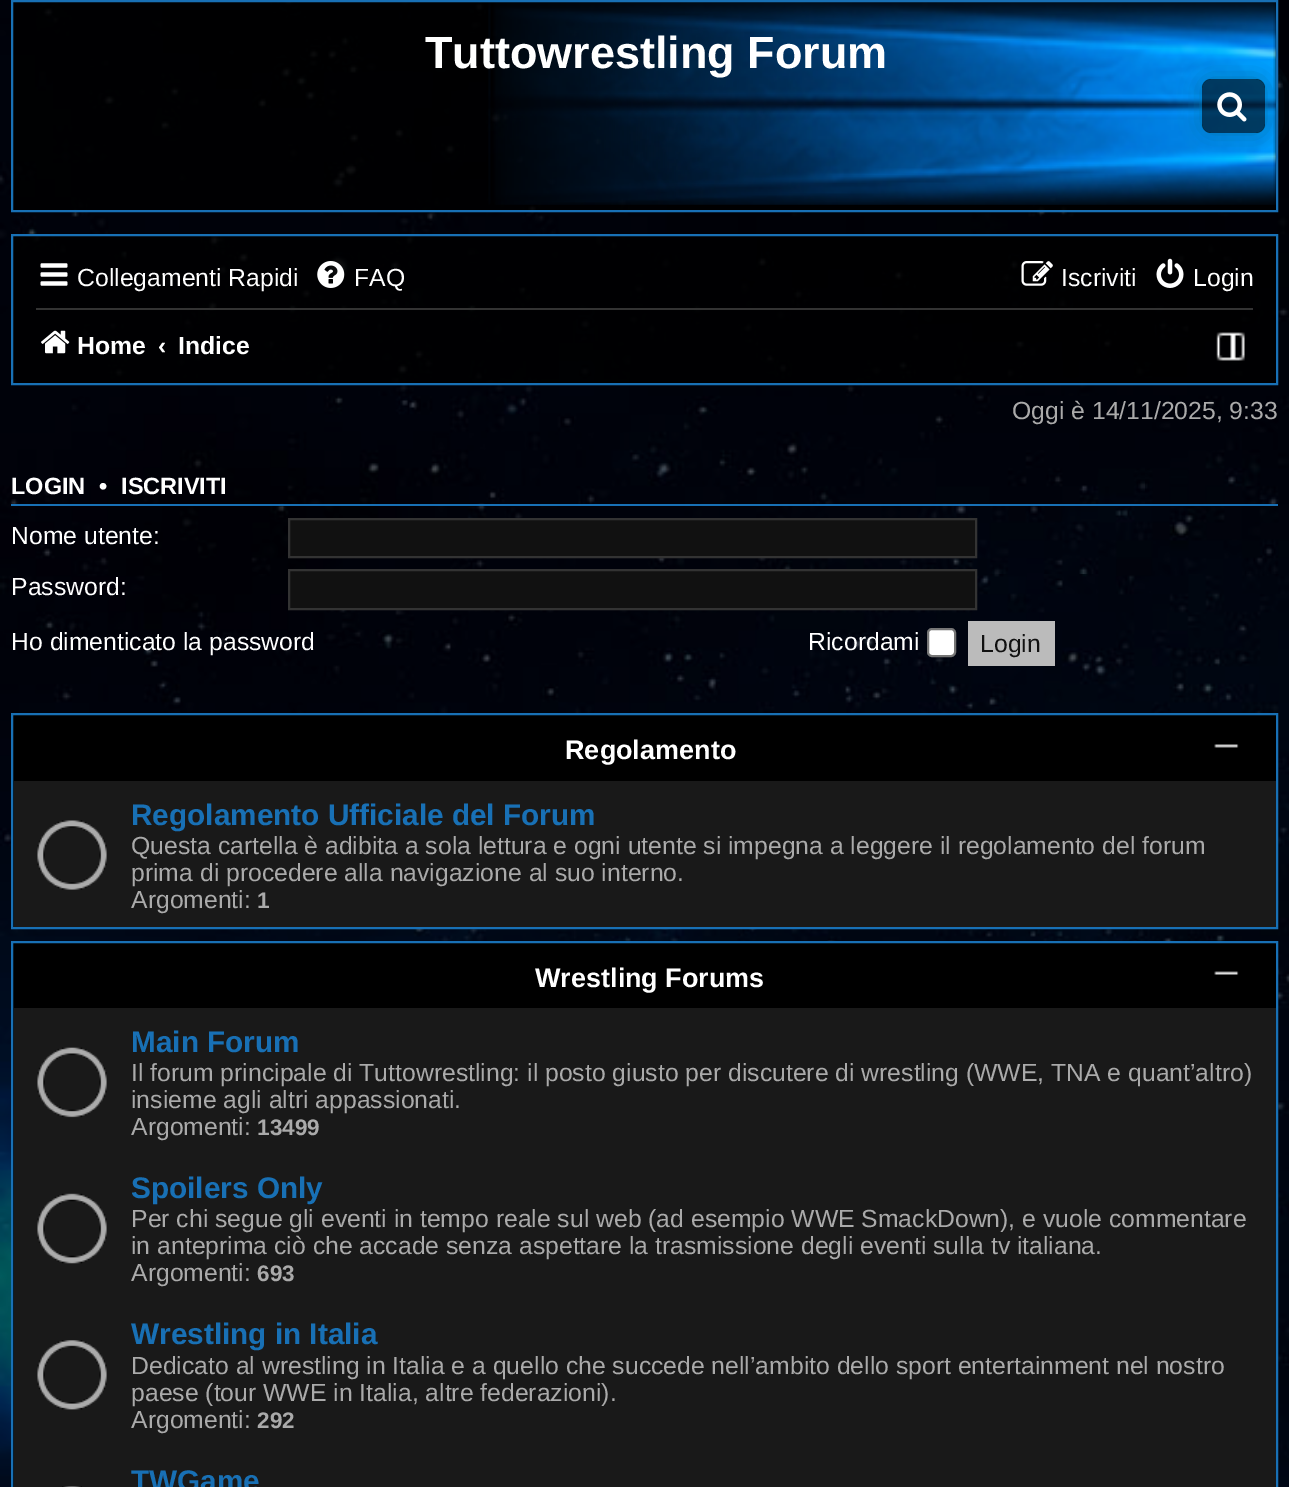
%!PS-Adobe-3.0
%%BoundingBox: 0 0 1289 1487
%%LanguageLevel: 3
%%Pages: 1
%%EndComments
%%BeginProlog
/setink { dup -16 bitshift 255 div exch dup -8 bitshift 255 and 255 div exch 255 and 255 div setrgbcolor } def
/usefont { [ exch dup neg 0 0 3 -1 roll 0 0 ] selectfont } def
/setalpha { dup .setfillconstantalpha .setstrokeconstantalpha } def
/rrect { 5 dict begin { /r /h /w /y /x } { exch def } forall
  x r add y moveto x w add y 2 copy h add r arct x w add y h add x 1 index r arct
  x y h add x y r arct x y 2 copy exch w add exch r arct closepath end } def
/softshadow { 12 dict begin { /a /b /q /h /w /y /x } { exch def } forall gsave /was 0 def
  9 -2 -9 { dup b mul 4 div /e exch def 1 sub .425 mul 2.718 exch exp 1 add a .99 .min exch div /now exch def
    1 1 now sub 1 was sub div sub setalpha /was now def
    w h .min e 2 mul add 0 gt { x e sub y e sub w e 2 mul add h e 2 mul add
      q e add b .6 mul add w h .min 2 div e add .min 0 .max rrect fill } if } for grestore end } def
/drawimage { 5 dict begin { /h /w /y /x /name } { exch def } forall
  gsave x y translate w h scale
  w h 8 [w 0 0 h 0 0] name (r) file false 3 colorimage grestore end } def
%%EndProlog
%%BeginSetup
<< /PageSize [1289 1487] /PageUsesTransparency true >> setpagedevice
%%EndSetup
%%Page: 1 1
0 .pushpdf14devicefilter
0 1487 translate 1 -1 scale
4 setmiterlimit
16#FFFFFF setink
0 0 1289 1487 rectfill
(img1.raw) 0 0 1289 1487 drawimage
0.8 setalpha
16#000000 setink
13 2 1263 208 rectfill
1 setalpha
(img2.raw) 488 2 788 203 drawimage
16#1870B5 setink
2 setlinewidth
12 1 1265 210 rectstroke
/LiberationSans-Bold 45 usefont
16#FFFFFF setink
425 68 moveto (Tuttowrestling Forum) show
gsave
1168 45 moveto 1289 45 lineto 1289 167 lineto 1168 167 lineto closepath 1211 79 moveto 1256 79 lineto 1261 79 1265 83 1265 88 curveto 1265 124 lineto 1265 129 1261 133 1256 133 curveto 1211 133 lineto 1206 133 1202 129 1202 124 curveto 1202 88 lineto 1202 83 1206 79 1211 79 curveto closepath eoclip newpath
16#0075B0 setink
1202 79 63 54 9 11 1 softshadow
grestore
0.6 setalpha
16#000000 setink
1202 79 63 54 9 rrect fill
1 setalpha
(img3.raw) 1217 92 30 30 drawimage
0.8 setalpha
12 235 moveto 1277 235 lineto 1277 384 lineto 12 384 lineto closepath fill
1 setalpha
16#1870B5 setink
12 235 moveto 1277 235 lineto 1277 384 lineto 12 384 lineto closepath stroke
(img4.raw) 40 263 28 23 drawimage
/LiberationSans-Regular 24.75 usefont
16#FFFFFF setink
77 286 moveto (Collegamenti Rapidi) show
(img5.raw) 317 261 28 27 drawimage
354 286 moveto (FAQ) show
(img6.raw) 1021 261 32 25 drawimage
1061 286 moveto (Iscriviti) show
(img7.raw) 1156 258 28 30 drawimage
1193 286 moveto (Login) show
16#333333 setink
36 308 1217 2 rectfill
(img8.raw) 41 330 29 24 drawimage
/LiberationSans-Bold 24.75 usefont
16#FFFFFF setink
[
    [(Home) 77 354]
    [(‹) 158 354]
    [(Indice) 178 354]
] { aload pop moveto show } forall
(img9.raw) 1216 332 29 29 drawimage
/LiberationSans-Regular 24.75 usefont
16#AAAAAA setink
1012 419 moveto (Oggi è 14/11/2025, 9:33) show
16#1870B5 setink
11 504 1267 2 rectfill
/LiberationSans-Bold 23.5 usefont
16#FFFFFF setink
[
    [(LOGIN) 11 494]
    [(•) 99 494]
    [(ISCRIVITI) 121 494]
] { aload pop moveto show } forall
/LiberationSans-Regular 24.75 usefont
11 544 moveto (Nome utente:) show
16#111111 setink
289 519 moveto 976 519 lineto 976 557 lineto 289 557 lineto closepath gsave fill grestore
16#333333 setink
stroke
16#FFFFFF setink
11 595 moveto (Password:) show
16#111111 setink
289 570 moveto 976 570 lineto 976 609 lineto 289 609 lineto closepath gsave fill grestore
16#333333 setink
stroke
16#FFFFFF setink
11 650 moveto (Ho dimenticato la password) show
808 650 moveto (Ricordami) show
928 629 27 27 4 rrect gsave fill grestore
16#767676 setink
stroke
16#BBBBBB setink
968 621 87 45 rectfill
16#111111 setink
980 652 moveto (Login) show
16#000000 setink
12 714 moveto 1277 714 lineto 1277 928 lineto 12 928 lineto closepath gsave fill grestore
16#1870B5 setink
stroke
/LiberationSans-Bold 27 usefont
16#FFFFFF setink
565 759 moveto (Regolamento) show
(img10.raw) 1214 744 25 4 drawimage
16#191919 setink
14 781 1262 146 rectfill
(img11.raw) 37 820 70 70 drawimage
/LiberationSans-Bold 29.75 usefont
16#1870B5 setink
131 825 moveto (Regolamento Ufficiale del Forum) show
/LiberationSans-Regular 24.75 usefont
16#AAAAAA setink
[
    [(Questa cartella è adibita a sola lettura e ogni utente si impegna a leggere il regolamento del forum) 131 854]
    [(prima di procedere alla navigazione al suo interno.) 131 881]
    [(Argomenti:) 131 908]
] { aload pop moveto show } forall
/LiberationSans-Bold 22.5 usefont
257 908 moveto (1) show
16#000000 setink
12 942 moveto 1277 942 lineto 1277 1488 lineto 12 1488 lineto closepath gsave fill grestore
16#1870B5 setink
stroke
/LiberationSans-Bold 27 usefont
16#FFFFFF setink
535 987 moveto (Wrestling Forums) show
(img12.raw) 1214 971 25 4 drawimage
16#191919 setink
14 1008 1262 479 rectfill
(img13.raw) 37 1047 70 71 drawimage
/LiberationSans-Bold 29.75 usefont
16#1870B5 setink
131 1052 moveto (Main Forum) show
/LiberationSans-Regular 24.75 usefont
16#AAAAAA setink
[
    [(Il forum principale di Tuttowrestling: il posto giusto per discutere di wrestling \(WWE, TNA e quant’altro\)) 131 1081]
    [(insieme agli altri appassionati.) 131 1108]
    [(Argomenti:) 131 1135]
] { aload pop moveto show } forall
/LiberationSans-Bold 22.5 usefont
257 1135 moveto (13499) show
(img14.raw) 37 1193 70 71 drawimage
/LiberationSans-Bold 29.75 usefont
16#1870B5 setink
131 1198 moveto (Spoilers Only) show
/LiberationSans-Regular 24.75 usefont
16#AAAAAA setink
[
    [(Per chi segue gli eventi in tempo reale sul web \(ad esempio WWE SmackDown\), e vuole commentare) 131 1227]
    [(in anteprima ciò che accade senza aspettare la trasmissione degli eventi sulla tv italiana.) 131 1254]
    [(Argomenti:) 131 1281]
] { aload pop moveto show } forall
/LiberationSans-Bold 22.5 usefont
257 1281 moveto (693) show
(img15.raw) 37 1340 70 70 drawimage
/LiberationSans-Bold 29.75 usefont
16#1870B5 setink
131 1344 moveto (Wrestling in Italia) show
/LiberationSans-Regular 24.75 usefont
16#AAAAAA setink
[
    [(Dedicato al wrestling in Italia e a quello che succede nell’ambito dello sport entertainment nel nostro) 131 1374]
    [(paese \(tour WWE in Italia, altre federazioni\).) 131 1401]
    [(Argomenti:) 131 1428]
] { aload pop moveto show } forall
/LiberationSans-Bold 22.5 usefont
257 1428 moveto (292) show
(img16.raw) 62 1486 20 1 drawimage
/LiberationSans-Bold 29.75 usefont
16#1870B5 setink
131 1491 moveto (TWGame) show
.poppdf14devicefilter showpage
%%EOF
